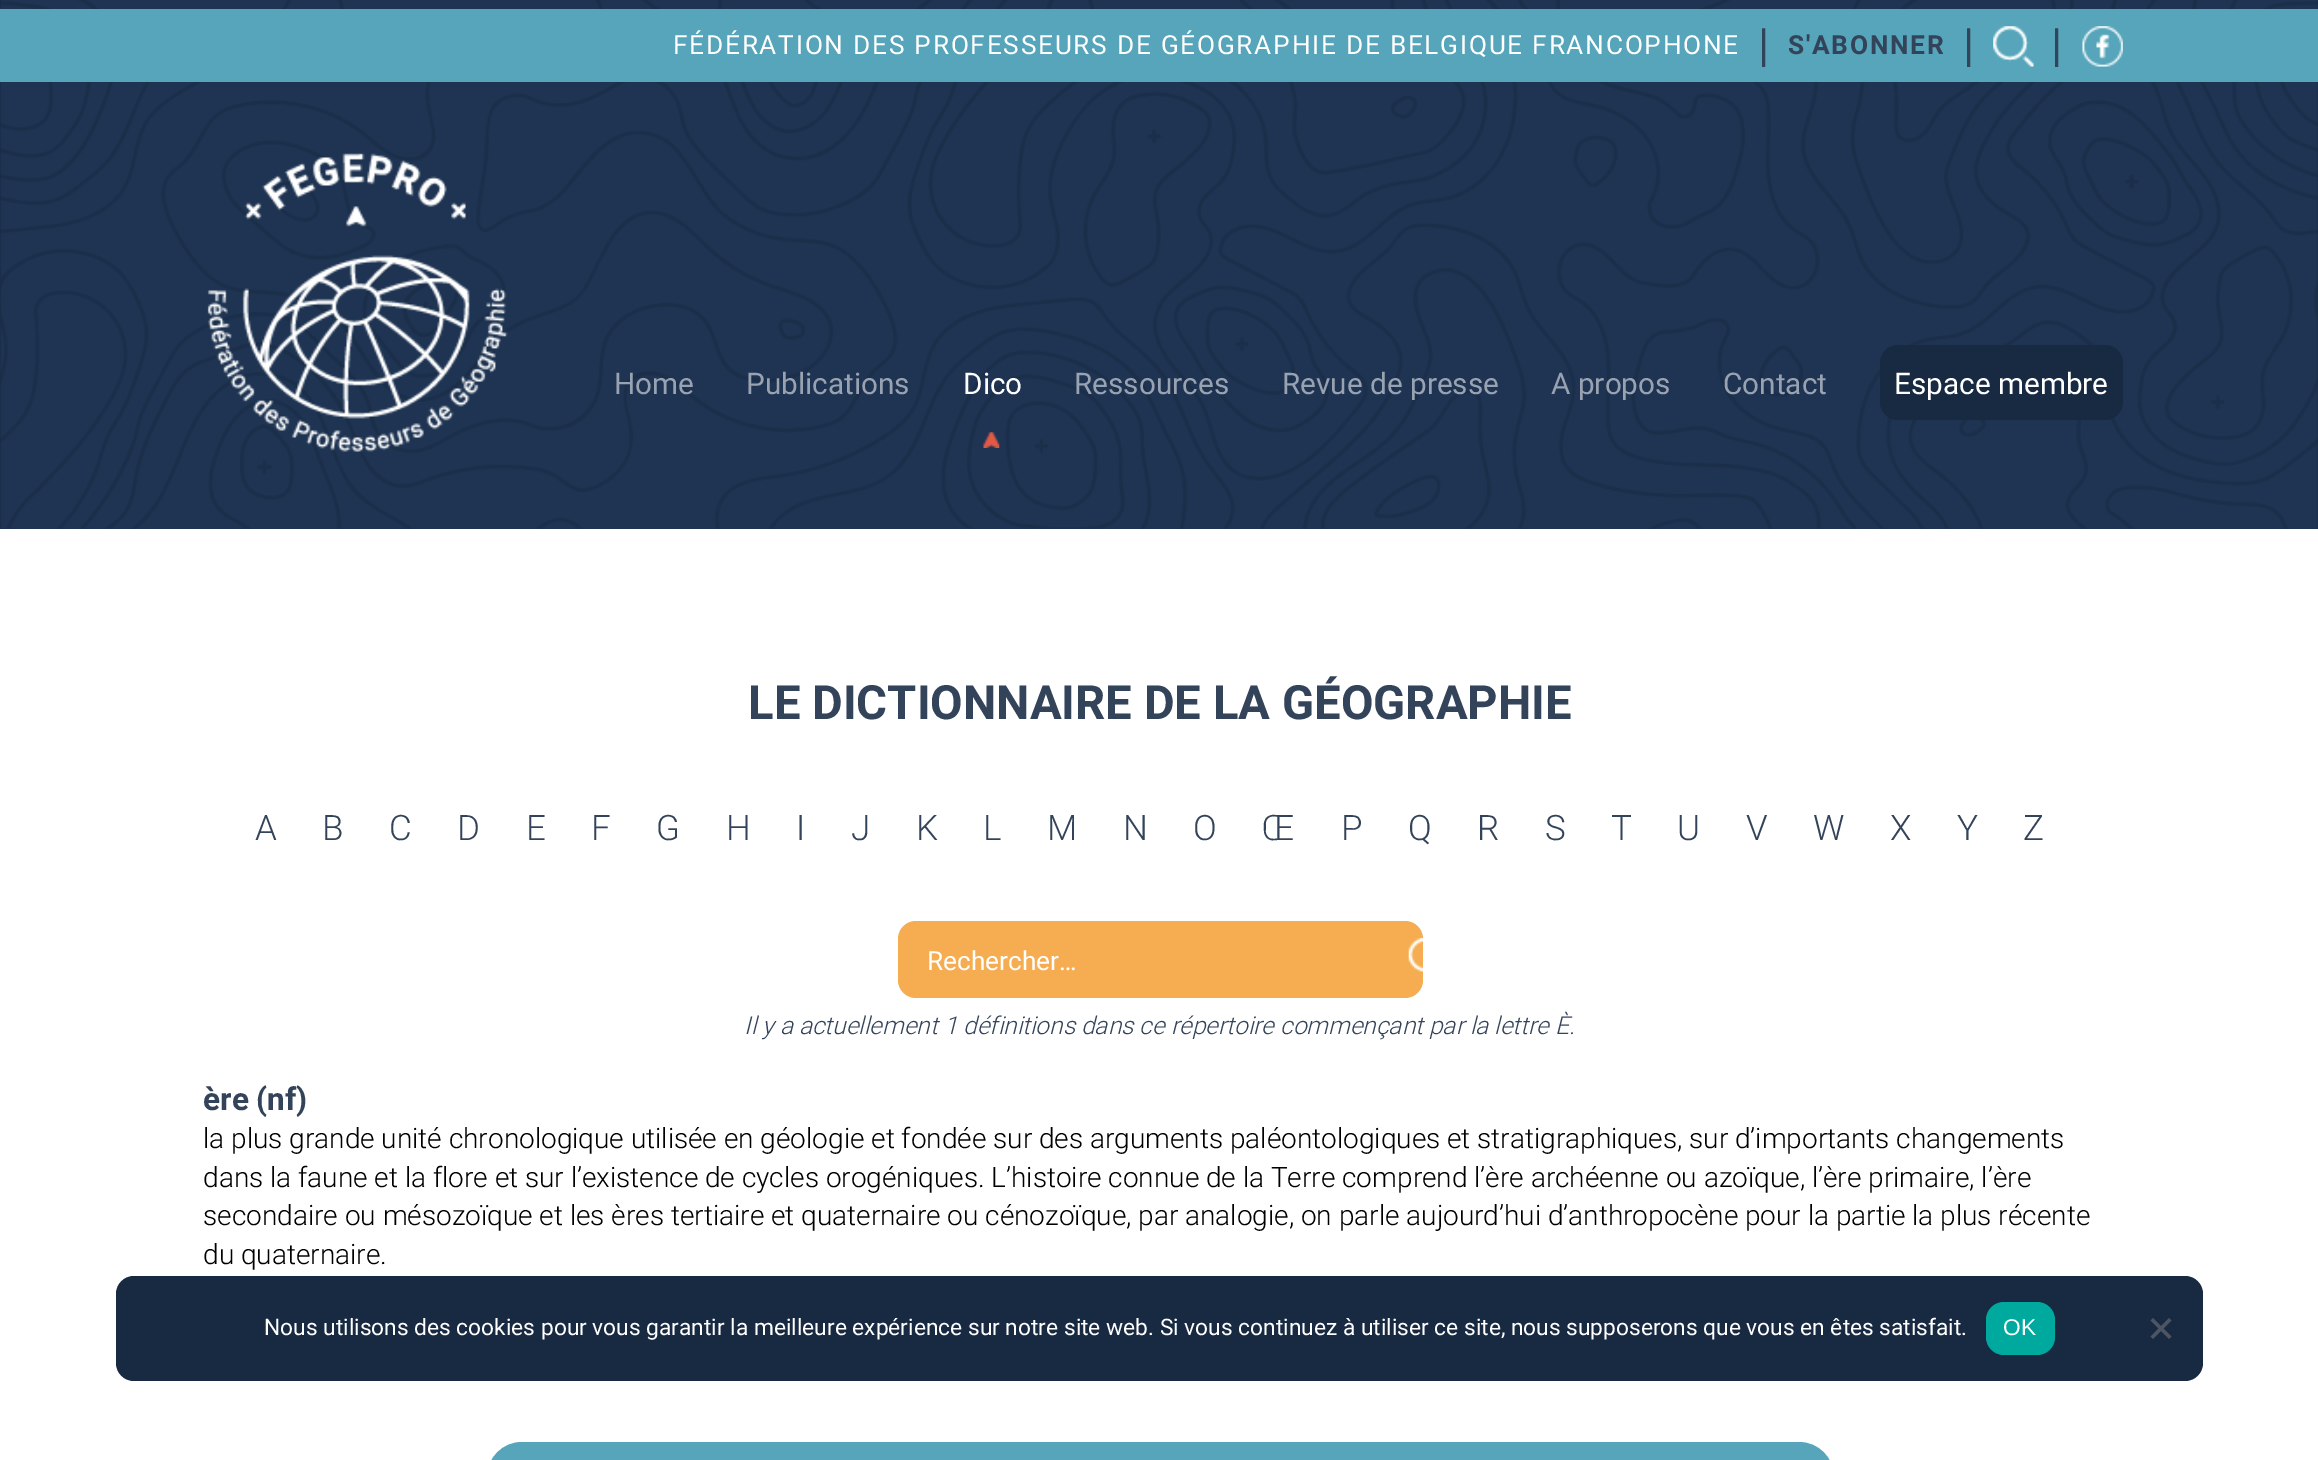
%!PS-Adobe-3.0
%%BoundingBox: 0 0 2318 1460
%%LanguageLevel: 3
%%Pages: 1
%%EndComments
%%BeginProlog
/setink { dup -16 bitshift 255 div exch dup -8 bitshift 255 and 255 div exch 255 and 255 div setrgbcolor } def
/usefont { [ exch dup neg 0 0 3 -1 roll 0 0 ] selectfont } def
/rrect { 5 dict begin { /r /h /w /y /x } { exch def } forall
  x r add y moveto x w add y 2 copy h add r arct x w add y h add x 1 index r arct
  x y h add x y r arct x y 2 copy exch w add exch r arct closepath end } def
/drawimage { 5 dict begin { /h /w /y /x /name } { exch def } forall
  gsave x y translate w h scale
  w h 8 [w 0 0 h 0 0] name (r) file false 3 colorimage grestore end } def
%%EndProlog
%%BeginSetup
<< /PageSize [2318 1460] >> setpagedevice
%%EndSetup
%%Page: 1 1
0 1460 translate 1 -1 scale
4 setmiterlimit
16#FFFFFF setink
0 0 2318 1460 rectfill
16#1E3452 setink
0 0 2318 529 rectfill
(img1.raw) 0 0 2318 529 drawimage
16#56A5BA setink
0 9 2318 73 rectfill
/Roboto-Regular 26.25 usefont
16#FFFFFF setink
673 54 moveto 1.75 0 (FÉDÉRATION DES PROFESSEURS DE GÉOGRAPHIE DE BELGIQUE FRANCOPHONE) ashow
/Roboto-Regular 46 usefont
16#33435A setink
1758 61 moveto 1.75 0 (|) ashow
/Roboto-Bold 26.25 usefont
1788 54 moveto 1.75 0 (S'ABONNER) ashow
/Roboto-Regular 46 usefont
1963 61 moveto 1.75 0 (|) ashow
(img2.raw) 1993 26 41 41 drawimage
2051 61 moveto 1.75 0 (|) ashow
(img3.raw) 2082 26 41 41 drawimage
(img4.raw) 207 153 301 299 drawimage
/Roboto-Regular 29.75 usefont
16#99A2B1 setink
614 394 moveto (Home) show
746 394 moveto (Publications) show
16#FFFFFF setink
963 394 moveto (Dico) show
(img5.raw) 983 432 17 16 drawimage
16#99A2B1 setink
[
    [(Ressources) 1074 394]
    [(Revue de presse) 1282 394]
    [(A propos) 1551 394]
    [(Contact) 1723 394]
] { aload pop moveto show } forall
16#182942 setink
1880 345 243 75 18 rrect fill
16#FFFFFF setink
1894 394 moveto (Espace membre) show
/Roboto-Bold 47.25 usefont
16#33435A setink
748 719 moveto (LE DICTIONNAIRE DE LA GÉOGRAPHIE) show
/Roboto-Light 35 usefont
[
    [(A) 255 840]
    [(B) 322 840]
    [(C) 389 840]
    [(D) 457 840]
    [(E) 526 840]
    [(F) 591 840]
    [(G) 656 840]
    [(H) 726 840]
    [(I) 796 840]
    [(J) 851 840]
    [(K) 916 840]
    [(L) 983 840]
    [(M) 1047 840]
    [(N) 1123 840]
    [(O) 1193 840]
    [(Œ) 1262 840]
    [(P) 1341 840]
    [(Q) 1408 840]
    [(R) 1477 840]
    [(S) 1545 840]
    [(T) 1611 840]
    [(U) 1677 840]
    [(V) 1746 840]
    [(W) 1813 840]
    [(X) 1890 840]
    [(Y) 1957 840]
    [(Z) 2023 840]
] { aload pop moveto show } forall
16#F6AD51 setink
898 921 525 77 18 rrect fill
/Roboto-Regular 26.25 usefont
16#FFFFFF setink
927 970 moveto (Rechercher…) show
(img6.raw) 1408 938 15 34 drawimage
/Roboto-LightItalic 24.5 usefont
16#33435A setink
744 1034 moveto (Il y a actuellement 1 définitions dans ce répertoire commençant par la lettre È.) show
/Roboto-Bold 31.5 usefont
203 1110 moveto (ère \(nf\)) show
/Roboto-Light 28 usefont
16#000000 setink
[
    [(la plus grande unité chronologique utilisée en géologie et fondée sur des arguments paléontologiques et stratigraphiques, sur d’importants changements) 203 1148]
    [(dans la faune et la flore et sur l’existence de cycles orogéniques. L’histoire connue de la Terre comprend l’ère archéenne ou azoïque, l’ère primaire, l’ère) 203 1187]
    [(secondaire ou mésozoïque et les ères tertiaire et quaternaire ou cénozoïque, par analogie, on parle aujourd’hui d’anthropocène pour la partie la plus récente) 203 1225]
    [(du quaternaire.) 203 1264]
] { aload pop moveto show } forall
16#56A5BA setink
4 setlinewidth
489 1444 1343 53 33 rrect stroke
518 1446 moveto 1803 1446 lineto 1818.5 1446 1831 1458.5 1831 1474 curveto 1831 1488 lineto 490 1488 lineto 490 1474 lineto 490 1458.5 502.5 1446 518 1446 curveto closepath fill
16#182942 setink
116 1276 2087 105 18 rrect fill
/Roboto-Regular 22.75 usefont
16#FFFFFF setink
264 1335 moveto (Nous utilisons des cookies pour vous garantir la meilleure expérience sur notre site web. Si vous continuez à utiliser ce site, nous supposerons que vous en êtes satisfait.) show
16#00A99D setink
1986 1302 69 53 18 rrect fill
/LiberationSans-Regular 22.75 usefont
16#FFFFFF setink
2003 1335 moveto (OK) show
16#4C5561 setink
2169 1318 moveto 2171.5 1320.5 lineto 2153 1339 lineto 2150.5 1336.5 lineto closepath fill
2150.5 1320.5 moveto 2153 1318 lineto 2171.5 1336.5 lineto 2169 1339 lineto closepath fill
showpage
%%EOF
